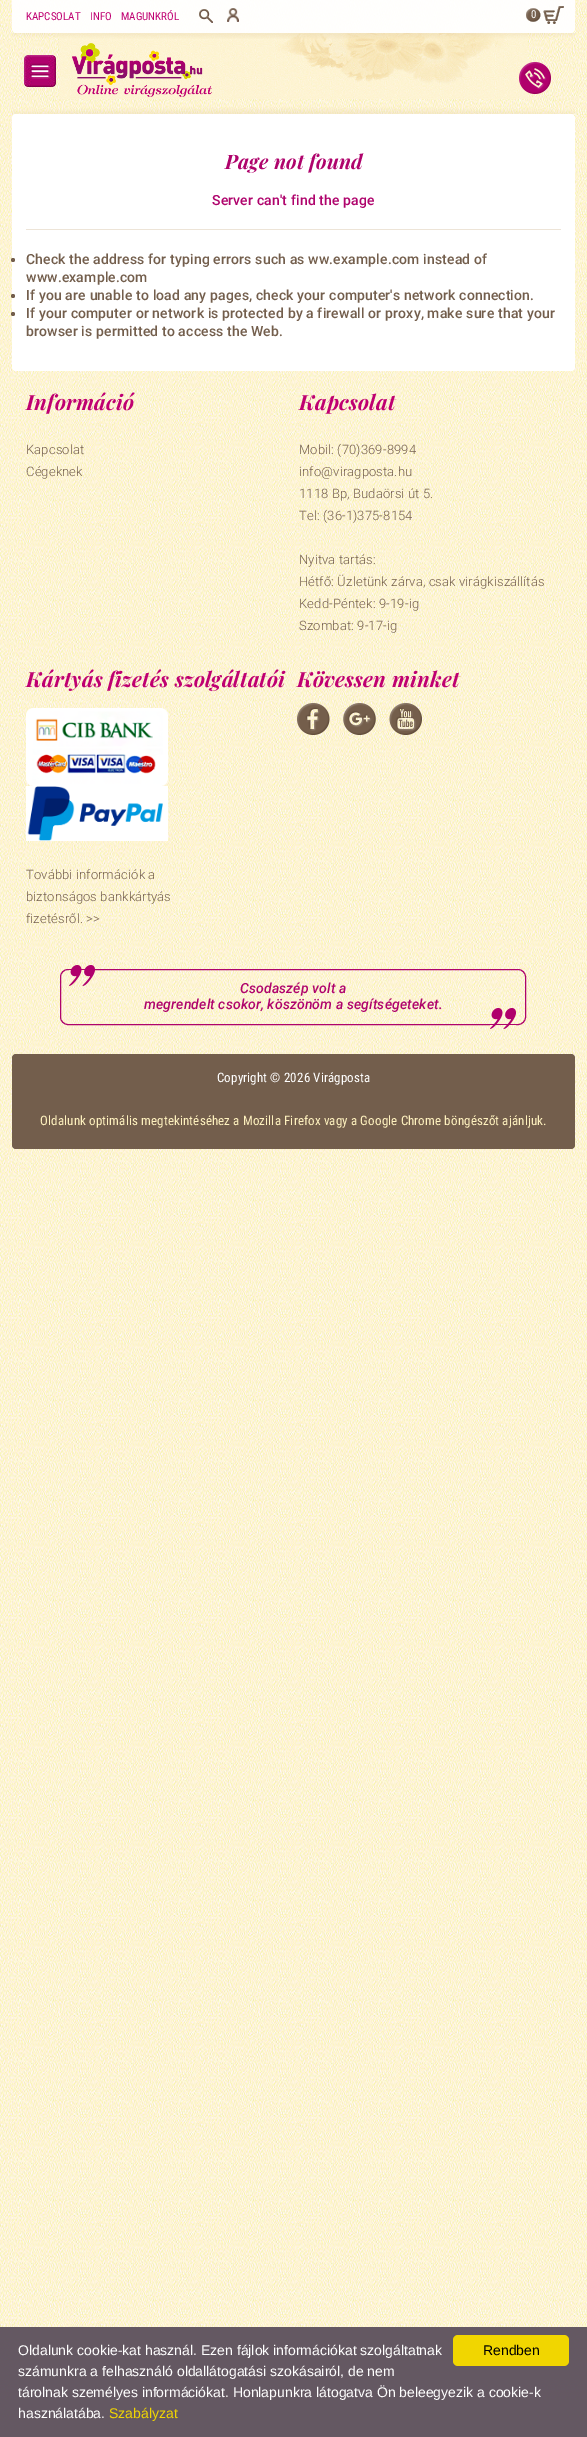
%!PS-Adobe-3.0
%%BoundingBox: 0 0 587 2437
%%LanguageLevel: 3
%%Pages: 1
%%EndComments
%%BeginProlog
/setink { dup -16 bitshift 255 div exch dup -8 bitshift 255 and 255 div exch 255 and 255 div setrgbcolor } def
/usefont { [ exch dup neg 0 0 3 -1 roll 0 0 ] selectfont } def
/setalpha { dup .setfillconstantalpha .setstrokeconstantalpha } def
/disc { newpath 0 360 arc closepath } def
/rrect { 5 dict begin { /r /h /w /y /x } { exch def } forall
  x r add y moveto x w add y 2 copy h add r arct x w add y h add x 1 index r arct
  x y h add x y r arct x y 2 copy exch w add exch r arct closepath end } def
/softshadow { 12 dict begin { /a /b /q /h /w /y /x } { exch def } forall gsave /was 0 def
  9 -2 -9 { dup b mul 4 div /e exch def 1 sub .425 mul 2.718 exch exp 1 add a .99 .min exch div /now exch def
    1 1 now sub 1 was sub div sub setalpha /was now def
    w h .min e 2 mul add 0 gt { x e sub y e sub w e 2 mul add h e 2 mul add
      q e add b .6 mul add w h .min 2 div e add .min 0 .max rrect fill } if } for grestore end } def
/drawimage { 5 dict begin { /h /w /y /x /name } { exch def } forall
  gsave x y translate w h scale
  w h 8 [w 0 0 h 0 0] name (r) file false 3 colorimage grestore end } def
%%EndProlog
%%BeginSetup
<< /PageSize [587 2437] /PageUsesTransparency true >> setpagedevice
%%EndSetup
%%Page: 1 1
0 .pushpdf14devicefilter
0 2437 translate 1 -1 scale
4 setmiterlimit
16#FFFFFF setink
0 0 587 2437 rectfill
(img1.raw) 0 0 587 2327 drawimage
0.95 setalpha
12 0 moveto 575 0 lineto 575 29 lineto 575 31 573 33 571 33 curveto 16 33 lineto 14 33 12 31 12 29 curveto closepath fill
/RobotoCondensed-Regular 11 usefont
1 setalpha
16#BF0071 setink
[
    [(KAPCSOLAT) 26 20]
    [(INFO) 90 20]
    [(MAGUNKRÓL) 121 20]
] { aload pop moveto show } forall
(img2.raw) 199 9 14 14 drawimage
(img3.raw) 227 8 12 14 drawimage
(img4.raw) 526 6 38 18 drawimage
16#FFFFFF setink
531 18 moveto (0) show
(img7.raw) 59 33 469 66 drawimage
(img5.raw) 12 33 563 6 drawimage
(img6.raw) 24 55 32 32 drawimage
(img8.raw) 72 43 140 54 drawimage
(img9.raw) 519 62 32 32 drawimage
12 114 563 257 4 rrect fill
(img10.raw) 12 107 563 7 drawimage
/PlayfairDisplay-BoldItalic 20 usefont
16#AF036C setink
225 169 moveto 0.15 0 (Page not found) ashow
/Roboto-Medium 14 usefont
212 205 moveto 0.15 0 (Server can't find the page) ashow
16#EDE4D7 setink
26 229 535 1 rectfill
16#735E4C setink
13 260 2 disc fill
26 264 moveto 0.15 0 (Check the address for typing errors such as ww.example.com instead of) ashow
26 282 moveto 0.15 0 (www.example.com) ashow
13 296 2 disc fill
26 300 moveto 0.15 0 (If you are unable to load any pages, check your computer's network connection.) ashow
13 314 2 disc fill
26 318 moveto 0.15 0 (If your computer or network is protected by a firewall or proxy, make sure that your) ashow
26 336 moveto 0.15 0 (browser is permitted to access the Web.) ashow
/PlayfairDisplay-BoldItalic 21 usefont
16#BF0071 setink
26 410 moveto 0.2 0 (Információ) ashow
/Roboto-Light 13 usefont
16#735E4C setink
26 454 moveto 0.13 0 (Kapcsolat) ashow
26 476 moveto 0.13 0 (Cégeknek) ashow
/PlayfairDisplay-BoldItalic 21 usefont
16#BF0071 setink
299 410 moveto 0.2 0 (Kapcsolat) ashow
/Roboto-Light 13 usefont
16#735E4C setink
299 454 moveto 0.13 0 (Mobil: \(70\)369-8994) ashow
299 476 moveto 0.13 0 (info@viragposta.hu) ashow
299 498 moveto 0.13 0 (1118 Bp, Budaörsi út 5.) ashow
299 520 moveto 0.13 0 (Tel: \(36-1\)375-8154) ashow
299 564 moveto 0.13 0 (Nyitva tartás:) ashow
299 586 moveto 0.13 0 (Hétfő: Üzletünk zárva, csak virágkiszállítás) ashow
299 608 moveto 0.13 0 (Kedd-Péntek: 9-19-ig) ashow
299 630 moveto 0.13 0 (Szombat: 9-17-ig) ashow
/PlayfairDisplay-BoldItalic 21 usefont
16#BF0071 setink
26 687 moveto 0.2 0 (Kártyás fizetés szolgáltatói) ashow
(img11.raw) 26 708 142 78 drawimage
(img12.raw) 26 786 142 55 drawimage
/Roboto-Light 13 usefont
16#735E4C setink
26 879 moveto 0.13 0 (További információk a) ashow
26 901 moveto 0.13 0 (biztonságos bankkártyás) ashow
26 923 moveto 0.13 0 (fizetésről. >>) ashow
/PlayfairDisplay-BoldItalic 21 usefont
16#BF0071 setink
297 687 moveto 0.2 0 (Kövessen minket) ashow
(img13.raw) 297 703 33 32 drawimage
(img14.raw) 343 703 33 32 drawimage
(img15.raw) 389 703 33 32 drawimage
16#AF036C setink
60.5 969.5 465 55 7.5 rrect stroke
(img16.raw) 69 965 26 21 drawimage
/Roboto-MediumItalic 14 usefont
240 993 moveto 0.15 0 (Csodaszép volt a) ashow
144 1009 moveto 0.15 0 (megrendelt csokor, köszönöm a segítségeteket.) ashow
(img17.raw) 490 1008 26 21 drawimage
16#735E4C setink
12 1054 563 95 4 rrect fill
/RobotoCondensed-Regular 13 usefont
16#FFFFFF setink
217 1082 moveto 0.13 0 (Copyright © 2026 Virágposta) ashow
16#FEF1BE setink
40 1125 moveto 0.13 0 (Oldalunk optimális megtekintéséhez a Mozilla Firefox vagy a Google Chrome böngészőt ajánljuk.) ashow
16#999999 setink
42 2329 70 70 35 1.5 1 softshadow
16#645862 setink
0 2327 587 110 rectfill
/LiberationSans-Regular 14 usefont
16#FFFFFF setink
[
    [(Oldalunk cookie-kat használ. Ezen fájlok információkat szolgáltatnak) 18 2355]
    [(számunkra a felhasználó oldallátogatási szokásairól, de nem) 18 2376]
    [(tárolnak személyes információkat. Honlapunkra látogatva Ön beleegyezik a cookie-k) 18 2397]
    [(használatába.) 18 2418]
] { aload pop moveto show } forall
16#F1D600 setink
109 2418 moveto (Szabályzat) show
453 2335 116 31 5 rrect fill
16#000000 setink
483 2355 moveto (Rendben) show
.poppdf14devicefilter showpage
%%EOF
